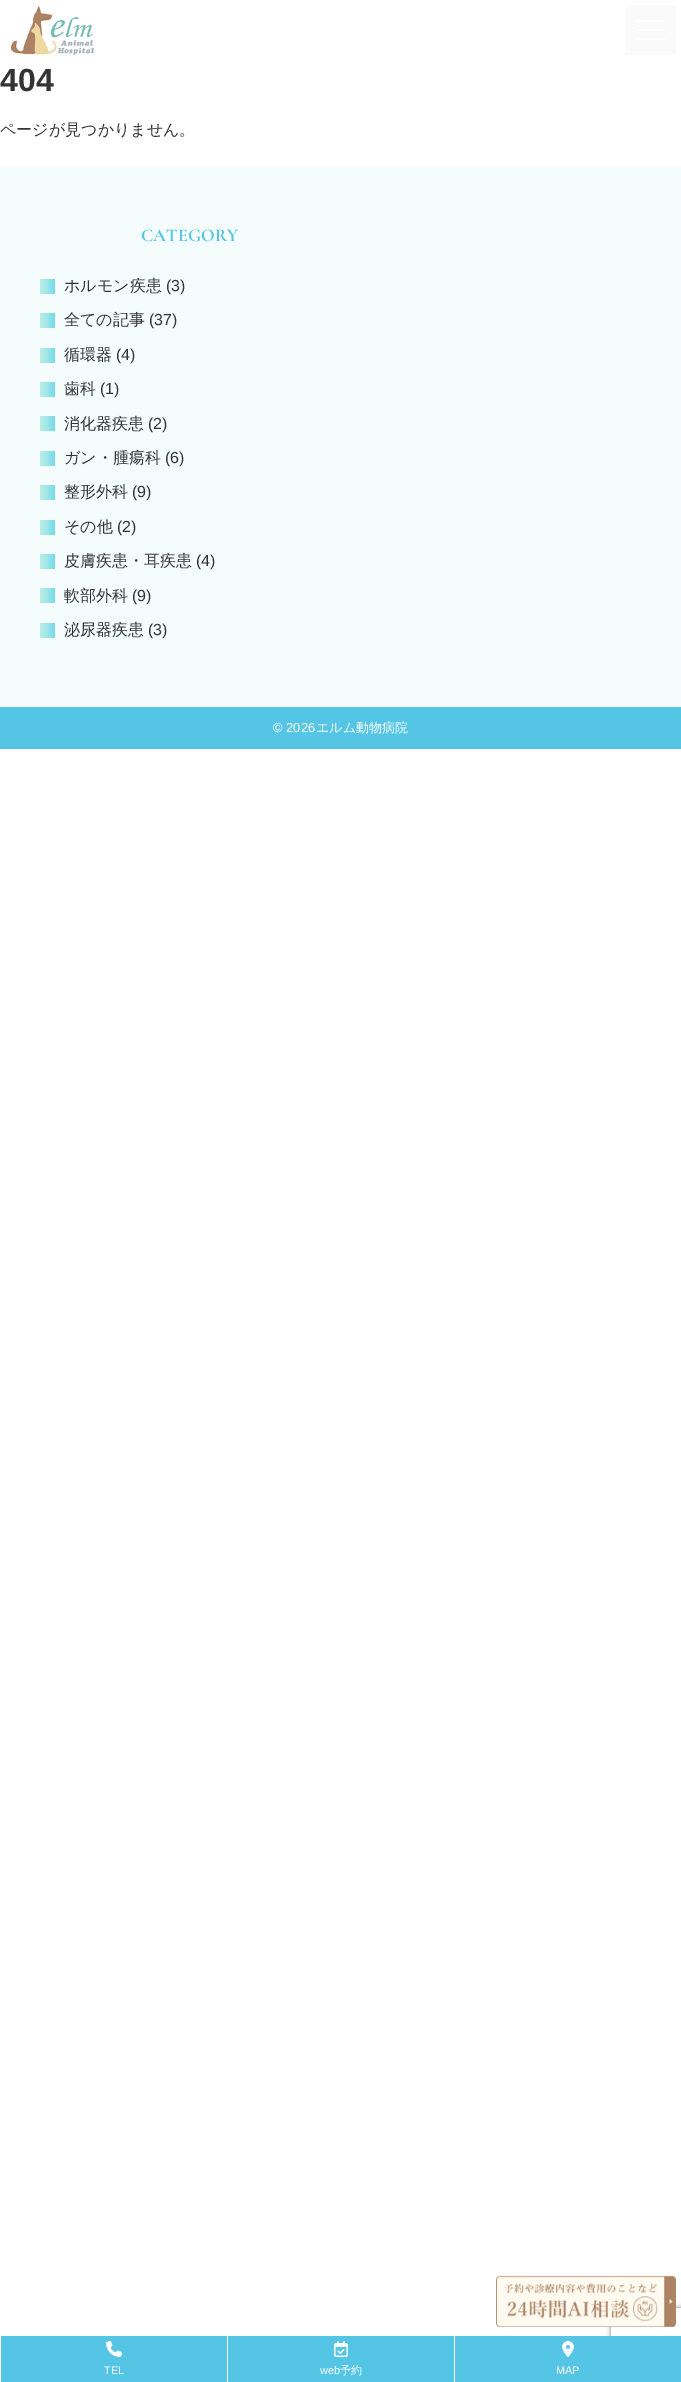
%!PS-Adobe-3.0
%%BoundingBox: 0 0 681 2382
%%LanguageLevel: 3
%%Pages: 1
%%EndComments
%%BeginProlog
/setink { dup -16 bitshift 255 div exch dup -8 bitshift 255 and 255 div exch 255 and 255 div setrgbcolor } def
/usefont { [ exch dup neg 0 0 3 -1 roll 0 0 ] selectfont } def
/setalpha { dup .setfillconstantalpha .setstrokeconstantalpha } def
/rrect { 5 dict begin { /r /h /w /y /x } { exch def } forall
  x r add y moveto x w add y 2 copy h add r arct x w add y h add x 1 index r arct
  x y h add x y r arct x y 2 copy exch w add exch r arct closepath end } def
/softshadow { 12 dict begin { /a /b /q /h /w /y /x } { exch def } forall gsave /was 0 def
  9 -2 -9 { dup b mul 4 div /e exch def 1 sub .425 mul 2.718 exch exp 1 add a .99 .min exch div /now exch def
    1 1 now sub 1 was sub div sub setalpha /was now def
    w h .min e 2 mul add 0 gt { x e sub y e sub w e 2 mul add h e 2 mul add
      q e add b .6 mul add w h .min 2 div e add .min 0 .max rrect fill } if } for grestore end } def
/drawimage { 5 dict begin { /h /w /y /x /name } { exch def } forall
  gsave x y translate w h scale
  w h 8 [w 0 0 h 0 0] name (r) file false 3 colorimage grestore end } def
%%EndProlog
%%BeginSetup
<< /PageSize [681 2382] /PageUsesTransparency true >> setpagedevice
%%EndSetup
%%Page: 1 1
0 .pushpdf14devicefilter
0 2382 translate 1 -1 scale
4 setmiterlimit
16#FFFFFF setink
0 0 681 2382 rectfill
(img1.raw) 10 6 84 49 drawimage
16#FAFAFA setink
626 5 50 50 rectfill
16#FFFFFF setink
637 20 28 2 1 rrect fill
637 29 28 2 1 rrect fill
637 38 28 2 1 rrect fill
/LiberationSans-Bold 32 usefont
16#333333 setink
0 91 moveto (404) show
/WenQuanYiZenHei-Medium 16 usefont
0 135 moveto (ページが見つかりません。) show
16#F4FCFC setink
0 166 681 541 rectfill
/CormorantGaramond-Bold 18 usefont
16#55C5E5 setink
141 241 moveto (CATEGORY) show
(img2.raw) 40 279 15 15 drawimage
/WenQuanYiZenHei-Medium 16 usefont
16#333333 setink
64 291 moveto (ホルモン疾患) show
/LiberationSans-Regular 16 usefont
166 291 moveto (\(3\)) show
(img2.raw) 40 313 15 15 drawimage
/WenQuanYiZenHei-Medium 16 usefont
64 325 moveto (全ての記事) show
/LiberationSans-Regular 16 usefont
149 325 moveto (\(37\)) show
(img2.raw) 40 348 15 15 drawimage
/WenQuanYiZenHei-Medium 16 usefont
64 360 moveto (循環器) show
/LiberationSans-Regular 16 usefont
116 360 moveto (\(4\)) show
(img2.raw) 40 382 15 15 drawimage
/WenQuanYiZenHei-Medium 16 usefont
64 394 moveto (歯科) show
/LiberationSans-Regular 16 usefont
100 394 moveto (\(1\)) show
(img2.raw) 40 416 15 15 drawimage
/WenQuanYiZenHei-Medium 16 usefont
64 429 moveto (消化器疾患) show
/LiberationSans-Regular 16 usefont
148 429 moveto (\(2\)) show
(img2.raw) 40 451 15 15 drawimage
/WenQuanYiZenHei-Medium 16 usefont
64 463 moveto (ガン・腫瘍科) show
/LiberationSans-Regular 16 usefont
165 463 moveto (\(6\)) show
(img2.raw) 40 485 15 15 drawimage
/WenQuanYiZenHei-Medium 16 usefont
64 497 moveto (整形外科) show
/LiberationSans-Regular 16 usefont
132 497 moveto (\(9\)) show
(img2.raw) 40 520 15 15 drawimage
/WenQuanYiZenHei-Medium 16 usefont
64 532 moveto (その他) show
/LiberationSans-Regular 16 usefont
117 532 moveto (\(2\)) show
(img2.raw) 40 554 15 15 drawimage
/WenQuanYiZenHei-Medium 16 usefont
64 566 moveto (皮膚疾患・耳疾患) show
/LiberationSans-Regular 16 usefont
196 566 moveto (\(4\)) show
(img2.raw) 40 588 15 15 drawimage
/WenQuanYiZenHei-Medium 16 usefont
64 601 moveto (軟部外科) show
/LiberationSans-Regular 16 usefont
132 601 moveto (\(9\)) show
(img2.raw) 40 623 15 15 drawimage
/WenQuanYiZenHei-Medium 16 usefont
64 635 moveto (泌尿器疾患) show
/LiberationSans-Regular 16 usefont
148 635 moveto (\(3\)) show
16#55C5E5 setink
0 707 681 42 rectfill
/LiberationSans-Regular 13 usefont
16#FFFFFF setink
273 732 moveto (© 2026) show
/WenQuanYiZenHei-Medium 13 usefont
316 732 moveto (エルム動物病院) show
gsave
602 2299 moveto 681 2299 lineto 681 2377 lineto 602 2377 lineto closepath 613 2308 moveto 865 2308 lineto 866 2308 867 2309 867 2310 curveto 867 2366 lineto 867 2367 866 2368 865 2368 curveto 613 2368 lineto 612 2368 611 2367 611 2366 curveto 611 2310 lineto 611 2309 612 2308 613 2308 curveto closepath eoclip newpath
16#808080 setink
611 2308 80 60 2 2.5 1 softshadow
grestore
(img3.raw) 496 2275 180 52 drawimage
16#55C5E5 setink
1 2336 680 46 rectfill
(img4.raw) 106 2341 16 16 drawimage
/LiberationSans-Regular 11 usefont
16#FFFFFF setink
104 2374 moveto (TEL) show
227 2336 1 46 rectfill
(img5.raw) 334 2341 14 16 drawimage
320 2374 moveto (web) show
/WenQuanYiZenHei-Medium 11 usefont
340 2374 moveto (予約) show
454 2336 1 46 rectfill
(img6.raw) 562 2341 12 16 drawimage
/LiberationSans-Regular 11 usefont
556 2374 moveto (MAP) show
.poppdf14devicefilter showpage
%%EOF
